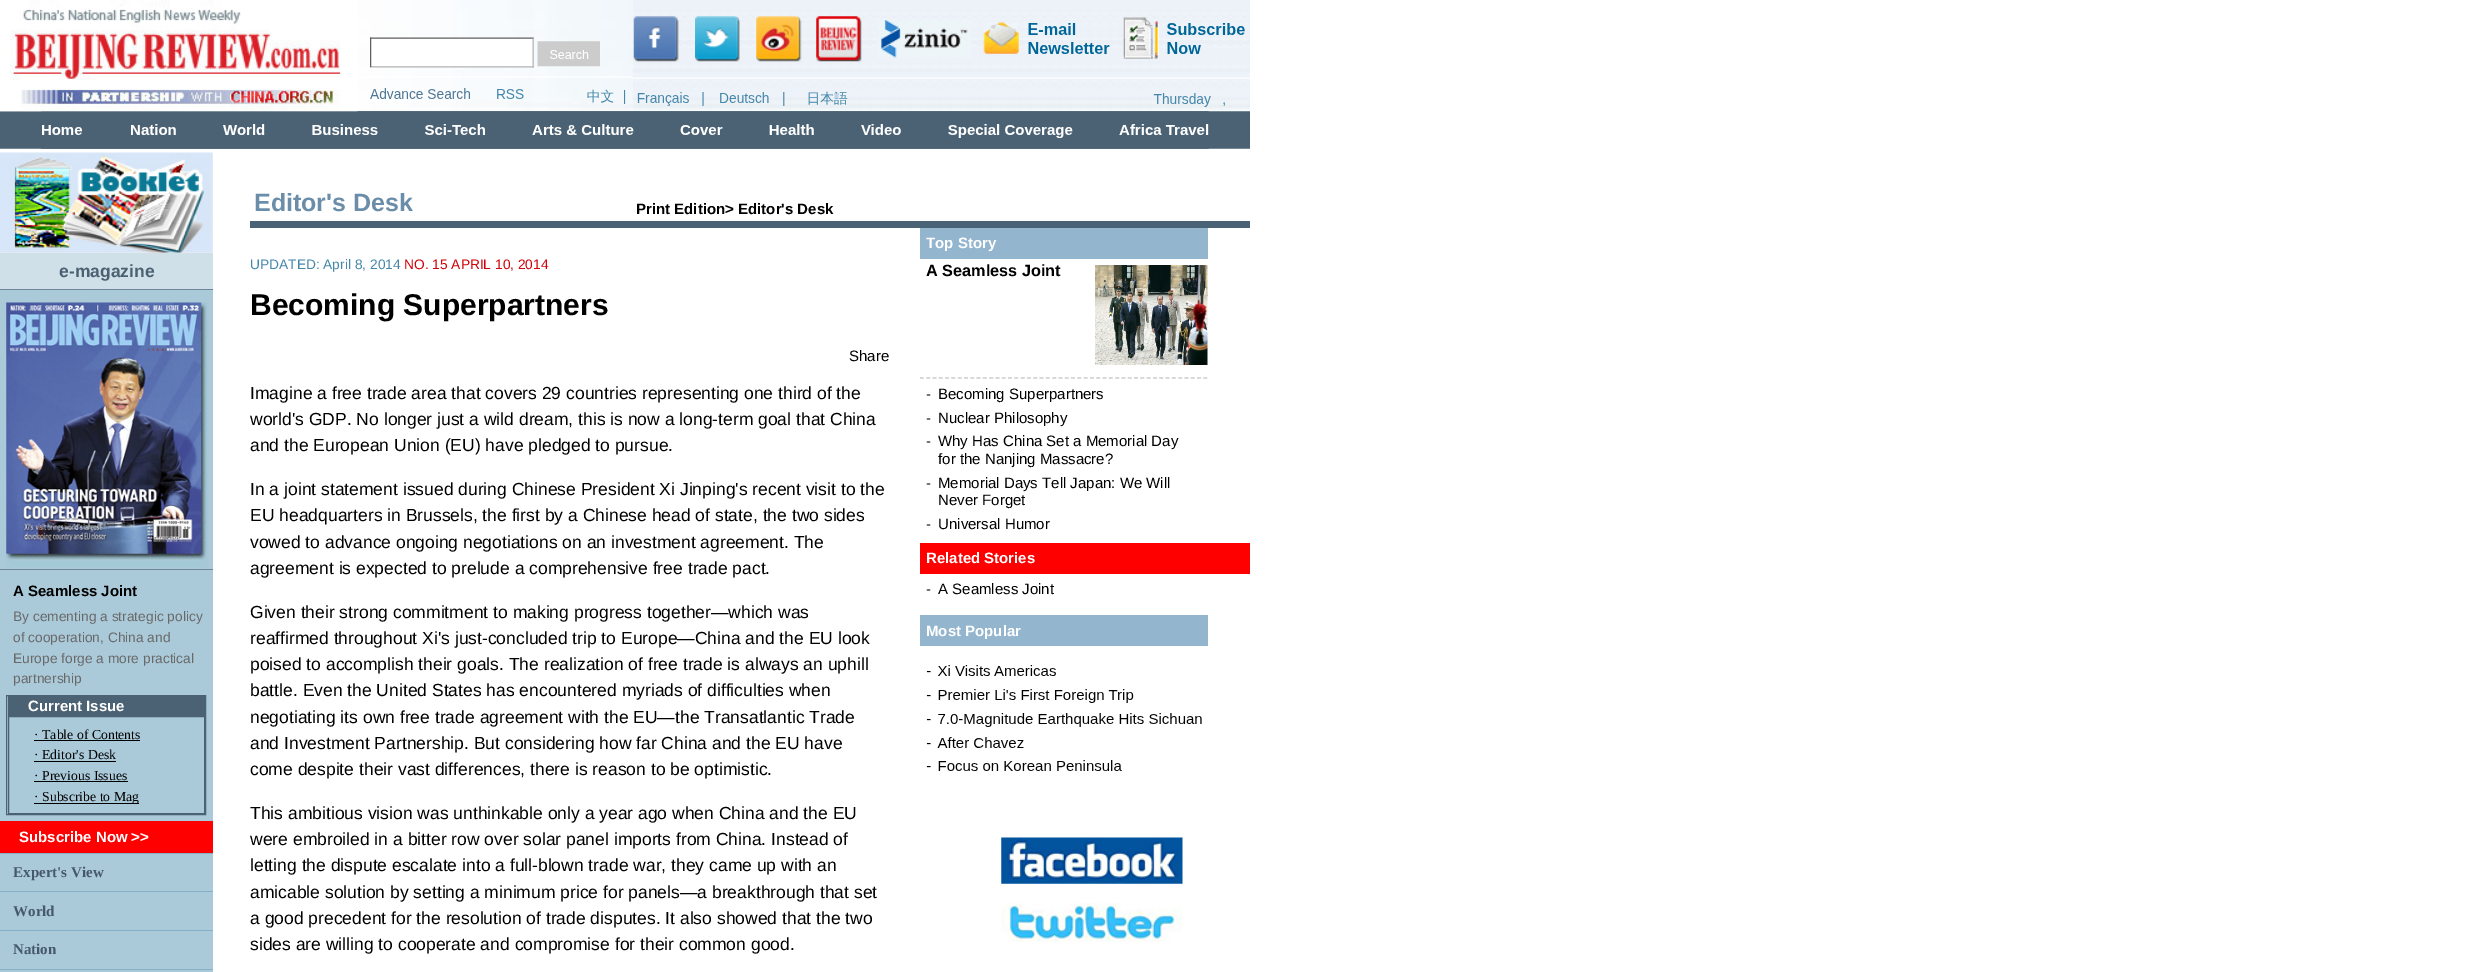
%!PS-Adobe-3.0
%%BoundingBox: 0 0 2482 972
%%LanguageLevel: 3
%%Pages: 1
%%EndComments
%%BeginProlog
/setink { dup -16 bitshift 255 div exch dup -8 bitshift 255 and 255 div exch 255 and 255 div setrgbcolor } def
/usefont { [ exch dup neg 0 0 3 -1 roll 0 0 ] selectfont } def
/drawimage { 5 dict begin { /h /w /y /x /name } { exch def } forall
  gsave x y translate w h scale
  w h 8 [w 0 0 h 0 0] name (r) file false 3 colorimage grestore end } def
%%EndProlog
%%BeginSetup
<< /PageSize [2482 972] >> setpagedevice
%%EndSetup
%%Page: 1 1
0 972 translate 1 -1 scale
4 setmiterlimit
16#FFFFFF setink
0 0 2482 972 rectfill
(img1.raw) 0 0 1250 149 drawimage
16#F0F0F0 setink
0 153 213 100 rectfill
(img2.raw) 0 152 213 101 drawimage
16#CFE0E8 setink
0 253 213 36 rectfill
16#6D8597 setink
0 289 213 1 rectfill
/LiberationSans-Bold 17.5 usefont
16#4B6071 setink
59 277 moveto (e-magazine) show
16#AACAD9 setink
0 290 213 279 rectfill
16#6D8597 setink
0 569 213 1 rectfill
(img3.raw) 6 302 202 266 drawimage
16#AACAD9 setink
0 570 213 251 rectfill
/LiberationSans-Bold 15 usefont
16#000000 setink
13 596 moveto (A Seamless Joint) show
/LiberationSans-Regular 13.75 usefont
16#696969 setink
[
    [(By cementing a strategic policy) 13 621]
    [(of cooperation, China and) 13 642]
    [(Europe forge a more practical) 13 663]
    [(partnership) 13 683]
] { aload pop moveto show } forall
16#4B6274 setink
6.5 695.5 199 119 rectstroke
8 696 197 20 rectfill
/LiberationSans-Bold 15 usefont
16#FFFFFF setink
28 711 moveto (Current Issue) show
16#4B6274 setink
8.5 716.5 196 97 rectstroke
/LiberationSerif-Regular 13.75 usefont
16#000000 setink
34 739 moveto (· Table of Contents) show
34 740 106 1 rectfill
34 759 moveto (· Editor's Desk) show
34 761 82 1 rectfill
34 780 moveto (· Previous Issues) show
34 781 94 1 rectfill
34 803 105 1 rectfill
34 801 moveto (· Subscribe to Mag) show
16#AACAD9 setink
0 854 213 118 rectfill
16#FE0000 setink
0 821 213 32 rectfill
/LiberationSans-Bold 15 usefont
16#FFFFFF setink
19 842 moveto (Subscribe Now >>) show
16#84B1C8 setink
0 853 213 1 rectfill
/LiberationSerif-Bold 15 usefont
16#46586C setink
13 877 moveto (Expert's View) show
16#84B1C8 setink
0 891 213 1 rectfill
16#46586C setink
13 916 moveto (World) show
16#84B1C8 setink
0 930 213 1 rectfill
16#46586C setink
13 954 moveto (Nation) show
16#84B1C8 setink
0 969 213 1 rectfill
/LiberationSans-Bold 25 usefont
16#6A8DA9 setink
254 211 moveto (Editor's Desk) show
/LiberationSans-Bold 15 usefont
16#000000 setink
636 214 moveto (Print Edition> Editor's Desk) show
16#496276 setink
250 221 1000 7 rectfill
/LiberationSans-Regular 13.75 usefont
16#4587AA setink
250 269 moveto (UPDATED: April 8, 2014) show
16#D00109 setink
404 269 moveto (NO. 15 APRIL 10, 2014) show
/LiberationSans-Bold 30 usefont
16#000000 setink
250 315 moveto (Becoming Superpartners) show
/LiberationSans-Regular 15 usefont
849 361 moveto (Share) show
/LiberationSans-Regular 17.5 usefont
[
    [(Imagine a free trade area that covers 29 countries representing one third of the) 250 399]
    [(world's GDP. No longer just a wild dream, this is now a long-term goal that China) 250 425]
    [(and the European Union \(EU\) have pledged to pursue.) 250 451]
    [(In a joint statement issued during Chinese President Xi Jinping's recent visit to the) 250 495]
    [(EU headquarters in Brussels, the first by a Chinese head of state, the two sides) 250 521]
    [(vowed to advance ongoing negotiations on an investment agreement. The) 250 548]
    [(agreement is expected to prelude a comprehensive free trade pact.) 250 574]
    [(Given their strong commitment to making progress together—which was) 250 618]
    [(reaffirmed throughout Xi's just-concluded trip to Europe—China and the EU look) 250 644]
    [(poised to accomplish their goals. The realization of free trade is always an uphill) 250 670]
    [(battle. Even the United States has encountered myriads of difficulties when) 250 696]
    [(negotiating its own free trade agreement with the EU—the Transatlantic Trade) 250 723]
    [(and Investment Partnership. But considering how far China and the EU have) 250 749]
    [(come despite their vast differences, there is reason to be optimistic.) 250 775]
    [(This ambitious vision was unthinkable only a year ago when China and the EU) 250 819]
    [(were embroiled in a bitter row over solar panel imports from China. Instead of) 250 845]
    [(letting the dispute escalate into a full-blown trade war, they came up with an) 250 871]
    [(amicable solution by setting a minimum price for panels—a breakthrough that set) 250 898]
    [(a good precedent for the resolution of trade disputes. It also showed that the two) 250 924]
    [(sides are willing to cooperate and compromise for their common good.) 250 950]
] { aload pop moveto show } forall
16#93B5CE setink
920 228 288 31 rectfill
/LiberationSans-Bold 15 usefont
16#FFFFFF setink
926 248 moveto (Top Story) show
16#CCCCCC setink
1.2 setlinewidth
[3.75 2.55] 0 setdash
920 378 moveto 1207.5 378 lineto stroke
/LiberationSans-Bold 16.25 usefont
16#000000 setink
926 276 moveto (A Seamless Joint) show
(img4.raw) 1095 265 113 100 drawimage
/LiberationSans-Regular 15 usefont
[
    [(-) 926 399]
    [(Becoming Superpartners) 938 399]
    [(-) 926 423]
    [(Nuclear Philosophy) 938 423]
    [(-) 926 446]
    [(Why Has China Set a Memorial Day) 938 446]
    [(for the Nanjing Massacre?) 938 464]
    [(-) 926 488]
    [(Memorial Days Tell Japan: We Will) 938 488]
    [(Never Forget) 938 505]
    [(-) 926 529]
    [(Universal Humor) 938 529]
] { aload pop moveto show } forall
16#FE0000 setink
920 543 330 31 rectfill
/LiberationSans-Bold 15 usefont
16#FFFFFF setink
926 563 moveto (Related Stories) show
/LiberationSans-Regular 15 usefont
16#000000 setink
926 594 moveto (-) show
938 594 moveto (A Seamless Joint) show
16#93B5CE setink
920 615 288 31 rectfill
/LiberationSans-Bold 15 usefont
16#FFFFFF setink
926 636 moveto (Most Popular) show
(img5.raw) 926 665 276 106 drawimage
(img6.raw) 1001 837 182 47 drawimage
(img7.raw) 1001 902 182 40 drawimage
showpage
%%EOF
